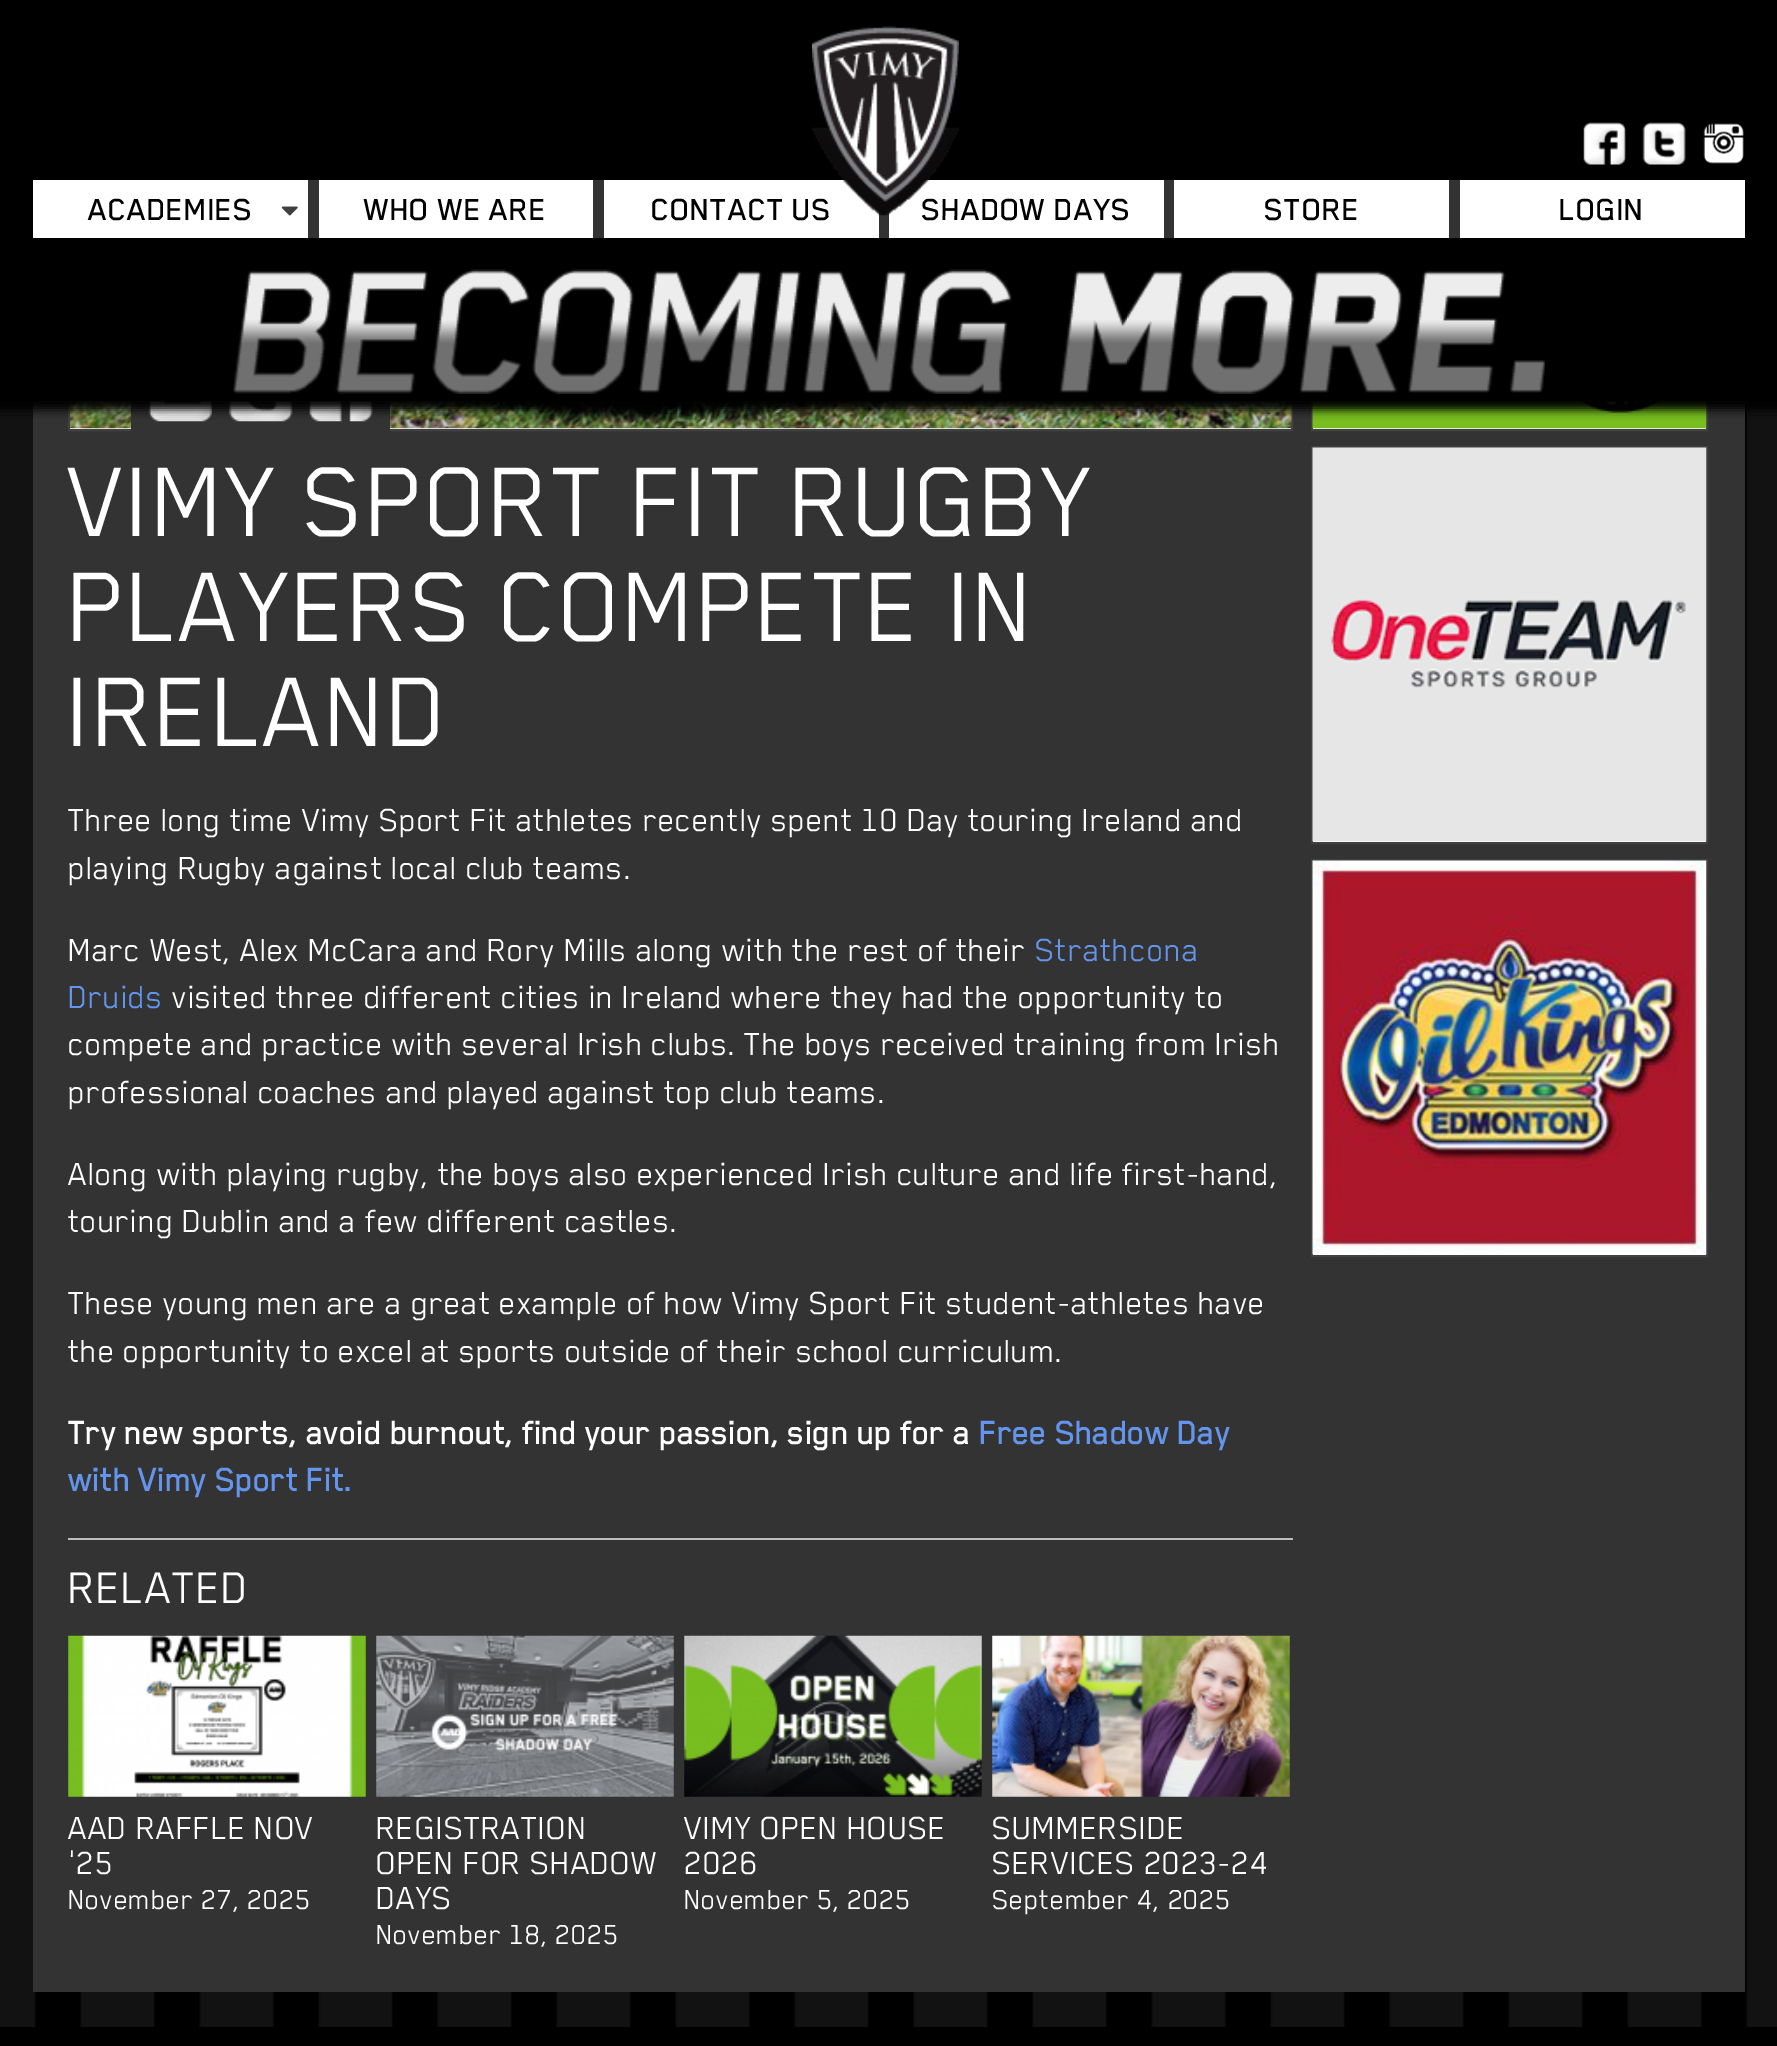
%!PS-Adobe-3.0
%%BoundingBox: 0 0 1777 2046
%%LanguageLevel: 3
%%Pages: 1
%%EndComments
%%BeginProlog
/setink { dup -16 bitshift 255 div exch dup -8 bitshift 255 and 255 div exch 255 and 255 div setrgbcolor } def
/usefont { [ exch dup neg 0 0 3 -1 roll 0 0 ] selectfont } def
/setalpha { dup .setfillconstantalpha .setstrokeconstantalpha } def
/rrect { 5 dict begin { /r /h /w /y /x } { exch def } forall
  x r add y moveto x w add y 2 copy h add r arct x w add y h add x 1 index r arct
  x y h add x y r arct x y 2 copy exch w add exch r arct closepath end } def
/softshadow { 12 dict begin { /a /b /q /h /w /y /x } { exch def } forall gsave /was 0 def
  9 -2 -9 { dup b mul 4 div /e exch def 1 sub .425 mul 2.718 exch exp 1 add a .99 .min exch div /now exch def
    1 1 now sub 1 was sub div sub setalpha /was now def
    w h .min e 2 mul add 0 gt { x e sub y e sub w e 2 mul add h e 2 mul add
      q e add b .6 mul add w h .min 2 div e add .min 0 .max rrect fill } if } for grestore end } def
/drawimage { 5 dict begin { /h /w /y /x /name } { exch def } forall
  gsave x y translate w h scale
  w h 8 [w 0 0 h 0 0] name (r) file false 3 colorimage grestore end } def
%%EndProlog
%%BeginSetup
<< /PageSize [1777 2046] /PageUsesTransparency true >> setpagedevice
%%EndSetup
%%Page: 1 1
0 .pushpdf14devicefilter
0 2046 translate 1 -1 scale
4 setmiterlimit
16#FFFFFF setink
0 0 1777 2046 rectfill
(img1.raw) 0 401 1777 1626 drawimage
16#333333 setink
33 401 1712 1591 rectfill
16#FFFFFF setink
70 428 1221 1 rectfill
16#414141 setink
2 setlinewidth
69 -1 1223 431 rectstroke
(img12.raw) 70 401 1222 28 drawimage
16#333333 setink
131 341 259 140 18 rrect fill
(img9.raw) 148 401 64 21 drawimage
(img10.raw) 229 401 64 21 drawimage
(img11.raw) 309 401 64 21 drawimage
16#FFFFFF setink
1313 428 393 1 rectfill
16#414141 setink
1312 34 395 396 rectstroke
(img17.raw) 1312 401 395 28 drawimage
16#000000 setink
-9 -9 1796 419 0 4.5 1 softshadow
[
    [0 0 1777 401 16#000000]
    [604 180 275 58 16#FFFFFF]
    [879 211 10 27 16#333333]
] { aload pop setink rectfill } forall
/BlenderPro-Medium 35 usefont
16#000000 setink
651 220 moveto (CONTACT US) show
16#FFFFFF setink
889 180 275 58 rectfill
16#000000 setink
921 220 moveto (SHADOW DAYS) show
(img2.raw) 812 127 148 89 drawimage
(img3.raw) 812 26 147 176 drawimage
(img4.raw) 233 269 1312 125 drawimage
(img5.raw) 1583 122 43 43 drawimage
(img6.raw) 1642 122 44 43 drawimage
(img7.raw) 1703 123 41 41 drawimage
16#FFFFFF setink
33 180 275 58 rectfill
16#333333 setink
308 180 11 58 rectfill
16#000000 setink
88 220 moveto (ACADEMIES) show
(img8.raw) 281 206 17 10 drawimage
16#FFFFFF setink
319 180 274 58 rectfill
16#333333 setink
593 180 11 58 rectfill
16#000000 setink
364 220 moveto (WHO WE ARE) show
[
    [1164 180 10 58 16#333333]
    [1174 180 275 58 16#FFFFFF]
    [1449 180 11 58 16#333333]
] { aload pop setink rectfill } forall
16#000000 setink
1264 220 moveto (STORE) show
16#FFFFFF setink
1460 180 285 58 rectfill
16#000000 setink
1559 220 moveto (LOGIN) show
/BlenderPro-Regular 113.75 usefont
16#FFFFFF setink
[
    [(VIMY SPORT FIT RUGBY) 68 536]
    [(PLAYERS COMPETE IN) 68 641]
    [(IRELAND) 68 746]
] { aload pop moveto show } forall
/BlenderPro-Regular 36.75 usefont
[
    [(Three long time Vimy Sport Fit athletes recently spent 10 Day touring Ireland and) 68 831]
    [(playing Rugby against local club teams.) 68 879]
    [(Marc West, Alex McCara and Rory Mills along with the rest of their) 68 961]
] { aload pop moveto show } forall
16#6495ED setink
1035 961 moveto (Strathcona) show
68 1008 moveto (Druids) show
16#FFFFFF setink
[
    [(visited three different cities in Ireland where they had the opportunity to) 172 1008]
    [(compete and practice with several Irish clubs. The boys received training from Irish) 68 1055]
    [(professional coaches and played against top club teams.) 68 1103]
    [(Along with playing rugby, the boys also experienced Irish culture and life first-hand,) 68 1185]
    [(touring Dublin and a few different castles.) 68 1232]
    [(These young men are a great example of how Vimy Sport Fit student-athletes have) 68 1314]
    [(the opportunity to excel at sports outside of their school curriculum.) 68 1362]
] { aload pop moveto show } forall
/BlenderPro-Bold 36.75 usefont
68 1444 moveto (Try new sports, avoid burnout, find your passion, sign up for a) show
16#6495ED setink
979 1444 moveto (Free Shadow Day) show
68 1491 moveto (with Vimy Sport Fit.) show
16#BEBDBC setink
68 1538 1225 2 rectfill
/BlenderPro-Regular 51 usefont
16#FFFFFF setink
68 1603 moveto (RELATED) show
(img13.raw) 68 1635 298 162 drawimage
/BlenderPro-Regular 36.75 usefont
68 1839 moveto (AAD RAFFLE NOV) show
68 1874 moveto ('25) show
/BlenderPro-Regular 31.5 usefont
68 1909 moveto (November 27, 2025) show
(img14.raw) 376 1635 298 162 drawimage
/BlenderPro-Regular 36.75 usefont
[
    [(REGISTRATION) 376 1839]
    [(OPEN FOR SHADOW) 376 1874]
    [(DAYS) 376 1909]
] { aload pop moveto show } forall
/BlenderPro-Regular 31.5 usefont
376 1944 moveto (November 18, 2025) show
(img15.raw) 684 1635 298 162 drawimage
/BlenderPro-Regular 36.75 usefont
684 1839 moveto (VIMY OPEN HOUSE) show
684 1874 moveto (2026) show
/BlenderPro-Regular 31.5 usefont
684 1909 moveto (November 5, 2025) show
(img16.raw) 992 1635 298 162 drawimage
/BlenderPro-Regular 36.75 usefont
992 1839 moveto (SUMMERSIDE) show
992 1874 moveto (SERVICES 2023-24) show
/BlenderPro-Regular 31.5 usefont
992 1909 moveto (September 4, 2025) show
1313 841 393 1 rectfill
16#414141 setink
1312 447 395 396 rectstroke
(img18.raw) 1312 447 395 395 drawimage
16#FFFFFF setink
1313 1254 393 1 rectfill
16#414141 setink
1312 860 395 396 rectstroke
(img19.raw) 1312 860 395 395 drawimage
16#000000 setink
0 2027 1777 19 rectfill
.poppdf14devicefilter showpage
%%EOF
